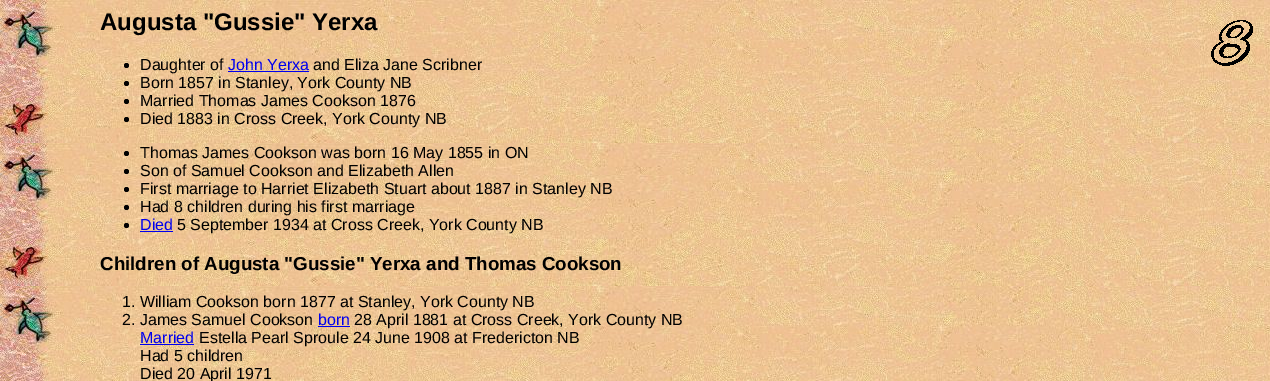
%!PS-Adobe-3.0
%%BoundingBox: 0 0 1270 381
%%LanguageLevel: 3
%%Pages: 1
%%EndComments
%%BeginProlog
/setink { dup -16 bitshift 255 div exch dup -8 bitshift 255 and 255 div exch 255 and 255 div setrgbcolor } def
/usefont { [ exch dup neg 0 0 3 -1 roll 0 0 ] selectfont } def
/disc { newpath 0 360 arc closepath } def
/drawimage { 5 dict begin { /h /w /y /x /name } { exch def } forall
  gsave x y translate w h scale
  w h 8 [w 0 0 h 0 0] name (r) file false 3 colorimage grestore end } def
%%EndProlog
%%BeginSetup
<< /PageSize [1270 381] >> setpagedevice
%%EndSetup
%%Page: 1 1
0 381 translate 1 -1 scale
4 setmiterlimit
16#FFFFFF setink
0 0 1270 381 rectfill
(img1.raw) 0 0 1270 381 drawimage
/LiberationSans-Bold 24 usefont
16#000000 setink
100 30 moveto (Augusta "Gussie" Yerxa) show
(img2.raw) 1211 20 42 46 drawimage
126.5 65.5 2.5 disc fill
/LiberationSans-Regular 16 usefont
140 70 moveto (Daughter of) show
16#0000EE setink
228 70 moveto (John Yerxa) show
228 71 81 1 rectfill
16#000000 setink
313 70 moveto (and Eliza Jane Scribner) show
126.5 83.5 2.5 disc fill
140 88 moveto (Born 1857 in Stanley, York County NB) show
126.5 101.5 2.5 disc fill
140 106 moveto (Married Thomas James Cookson 1876) show
126.5 119.5 2.5 disc fill
140 124 moveto (Died 1883 in Cross Creek, York County NB) show
126.5 153.5 2.5 disc fill
140 158 moveto (Thomas James Cookson was born 16 May 1855 in ON) show
126.5 171.5 2.5 disc fill
140 176 moveto (Son of Samuel Cookson and Elizabeth Allen) show
126.5 189.5 2.5 disc fill
140 194 moveto (First marriage to Harriet Elizabeth Stuart about 1887 in Stanley NB) show
126.5 207.5 2.5 disc fill
140 212 moveto (Had 8 children during his first marriage) show
126.5 225.5 2.5 disc fill
16#0000EE setink
140 230 moveto (Died) show
140 231 33 1 rectfill
16#000000 setink
177 230 moveto (5 September 1934 at Cross Creek, York County NB) show
/LiberationSans-Bold 18.75 usefont
100 270 moveto (Children of Augusta "Gussie" Yerxa and Thomas Cookson) show
/LiberationSans-Regular 16 usefont
122 307 moveto (1. William Cookson born 1877 at Stanley, York County NB) show
122 325 moveto (2. James Samuel Cookson) show
16#0000EE setink
318 325 moveto (born) show
318 326 32 1 rectfill
16#000000 setink
354 325 moveto (28 April 1881 at Cross Creek, York County NB) show
16#0000EE setink
140 343 moveto (Married) show
140 344 54 1 rectfill
16#000000 setink
[
    [(Estella Pearl Sproule 24 June 1908 at Fredericton NB) 199 343]
    [(Had 5 children) 140 361]
    [(Died 20 April 1971) 140 379]
] { aload pop moveto show } forall
showpage
%%EOF
